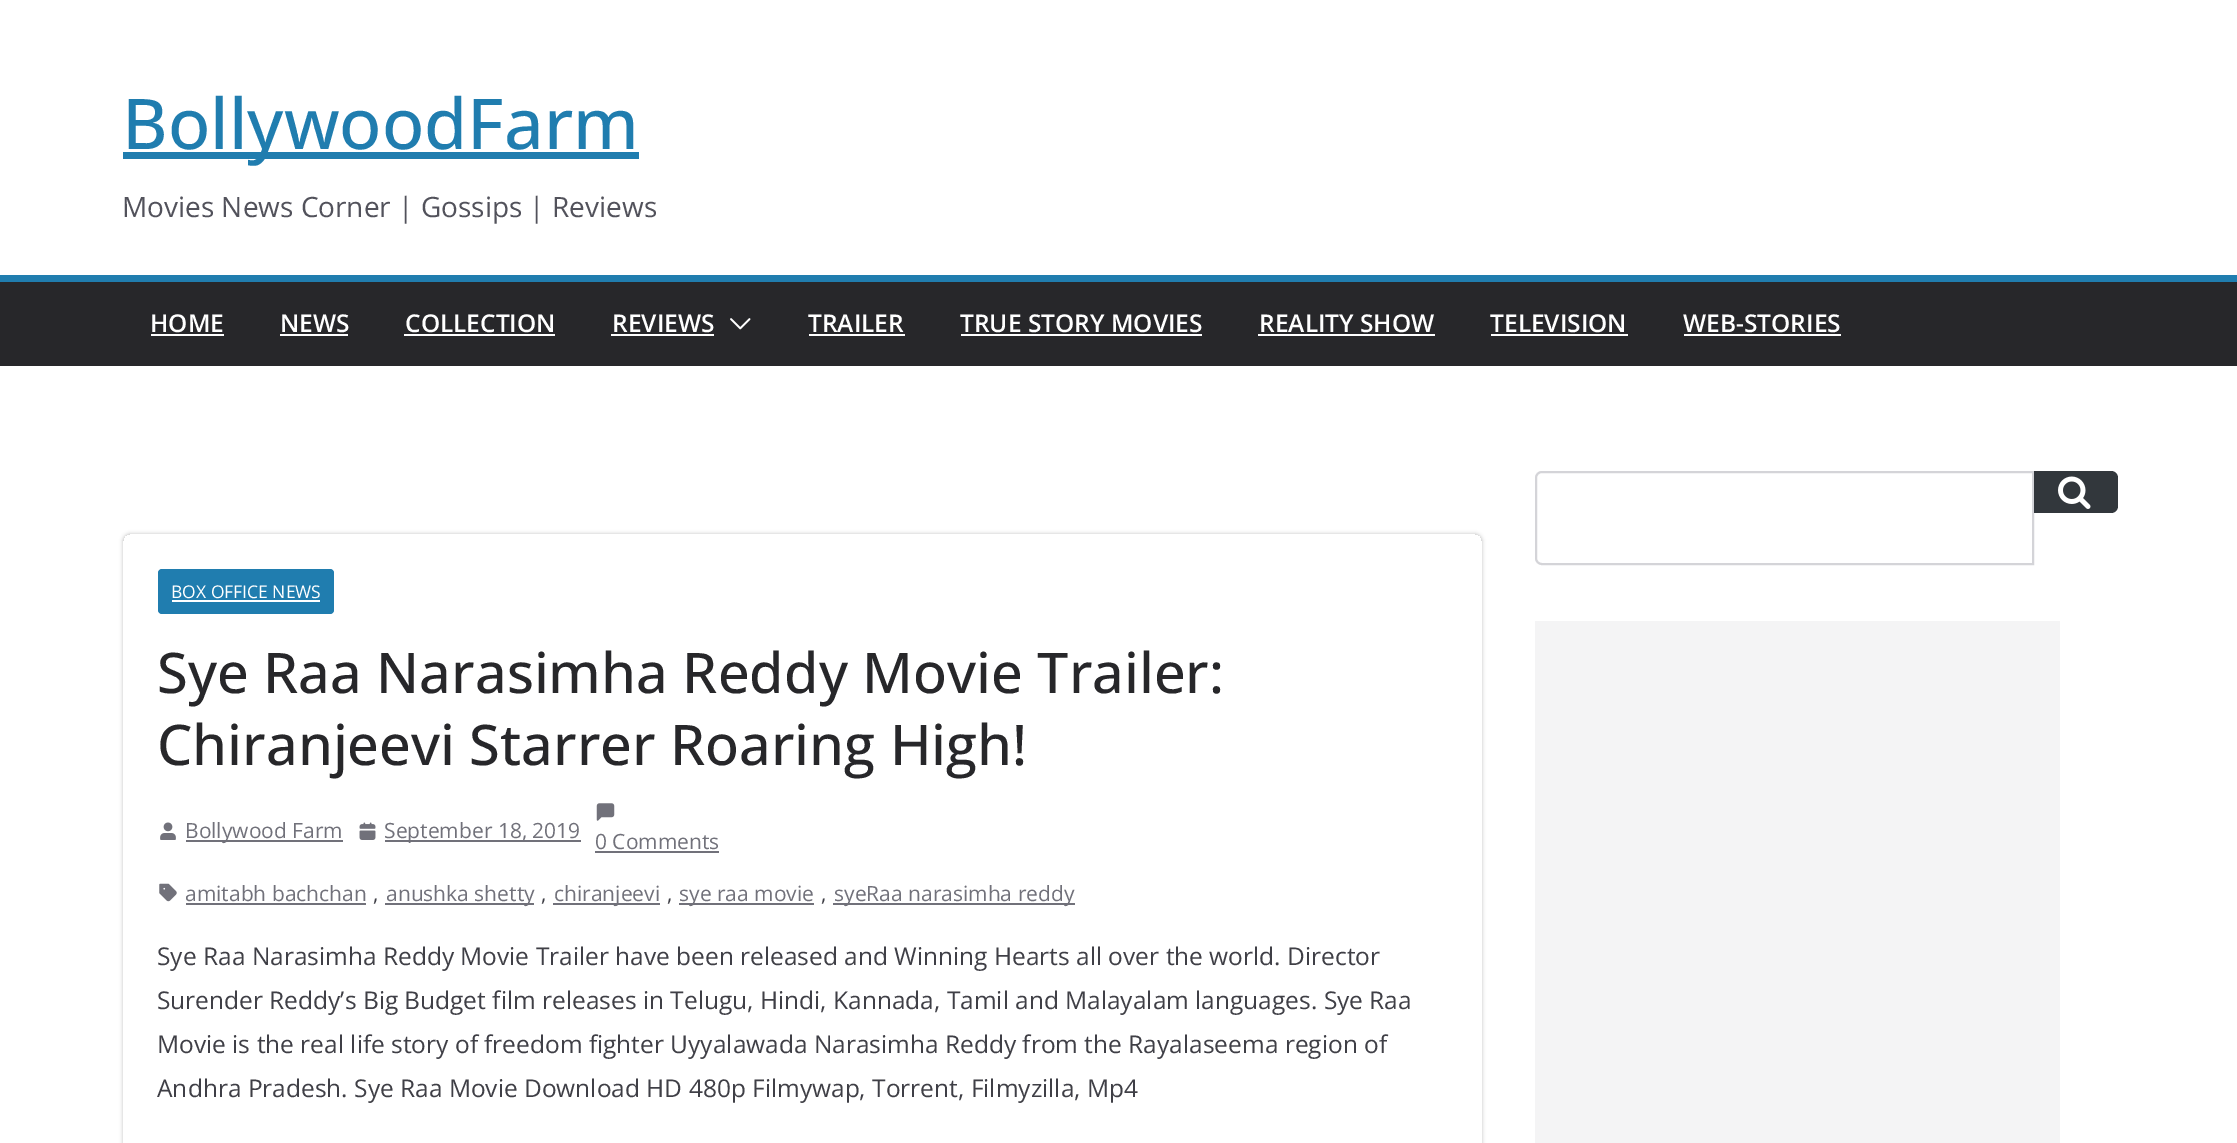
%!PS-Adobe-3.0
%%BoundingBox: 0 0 2237 1143
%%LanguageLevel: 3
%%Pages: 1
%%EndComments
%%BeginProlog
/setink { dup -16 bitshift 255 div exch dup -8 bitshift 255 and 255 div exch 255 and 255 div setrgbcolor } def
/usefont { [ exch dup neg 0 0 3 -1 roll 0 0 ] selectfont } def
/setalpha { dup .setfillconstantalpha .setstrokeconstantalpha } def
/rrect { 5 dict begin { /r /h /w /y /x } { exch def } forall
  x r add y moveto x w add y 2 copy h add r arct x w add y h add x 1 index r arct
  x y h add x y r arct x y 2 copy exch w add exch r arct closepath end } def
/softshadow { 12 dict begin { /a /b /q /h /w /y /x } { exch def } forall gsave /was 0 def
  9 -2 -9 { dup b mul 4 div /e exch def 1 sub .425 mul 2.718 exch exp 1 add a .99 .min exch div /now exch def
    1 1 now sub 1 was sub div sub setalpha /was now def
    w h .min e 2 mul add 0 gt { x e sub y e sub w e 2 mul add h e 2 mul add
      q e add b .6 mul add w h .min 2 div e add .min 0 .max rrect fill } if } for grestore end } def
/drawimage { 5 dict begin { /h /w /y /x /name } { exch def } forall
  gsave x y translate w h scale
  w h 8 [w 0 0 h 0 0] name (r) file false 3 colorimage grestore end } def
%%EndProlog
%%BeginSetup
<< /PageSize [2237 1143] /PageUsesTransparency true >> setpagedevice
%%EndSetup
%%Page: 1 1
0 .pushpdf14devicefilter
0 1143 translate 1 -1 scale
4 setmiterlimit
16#FFFFFF setink
0 0 2237 1143 rectfill
16#207DAF setink
123 152 516 7 rectfill
/OpenSans-Medium 70 usefont
122 149 moveto (BollywoodFarm) show
/OpenSans-Regular 28 usefont
16#52525B setink
122 217 moveto (Movies News Corner | Gossips | Reviews) show
16#27272A setink
0 282 2237 84 rectfill
16#207DAF setink
0 275 2237 7 rectfill
/OpenSans-SemiBold 24.5 usefont
16#FFFFFF setink
150 332 moveto (HOME) show
151 334 73 2 rectfill
280 332 moveto (NEWS) show
280 334 68 2 rectfill
405 332 moveto (COLLECTION) show
404 334 151 2 rectfill
612 332 moveto (REVIEWS) show
611 334 103 2 rectfill
(img1.raw) 730 318 21 12 drawimage
808 332 moveto (TRAILER) show
809 334 96 2 rectfill
960 332 moveto (TRUE STORY MOVIES) show
961 334 241 2 rectfill
1259 332 moveto (REALITY SHOW) show
1258 334 177 2 rectfill
1490 332 moveto (TELEVISION) show
1491 334 137 2 rectfill
1683 332 moveto (WEB-STORIES) show
1684 334 157 2 rectfill
gsave
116 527 moveto 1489 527 lineto 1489 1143 lineto 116 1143 lineto closepath 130 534 moveto 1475 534 lineto 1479 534 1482 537 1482 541 curveto 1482 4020 lineto 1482 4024 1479 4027 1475 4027 curveto 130 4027 lineto 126 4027 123 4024 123 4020 curveto 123 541 lineto 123 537 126 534 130 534 curveto closepath eoclip newpath
16#000000 setink
123 534 1359 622 7 2 0.24 softshadow
grestore
16#207DAF setink
158 569 176 45 4 rrect fill
/OpenSans-Regular 17.5 usefont
16#FFFFFF setink
171 598 moveto (BOX OFFICE NEWS) show
172 600 148 2 rectfill
/OpenSans-Medium 56 usefont
16#27272A setink
157 693 moveto (Sye Raa Narasimha Reddy Movie Trailer:) show
157 765 moveto (Chiranjeevi Starrer Roaring High!) show
(img2.raw) 160 822 16 18 drawimage
16#71717A setink
186 840 157 2 rectfill
/OpenSans-Regular 21 usefont
185 838 moveto (Bollywood Farm) show
(img3.raw) 359 822 17 18 drawimage
385 840 196 2 rectfill
384 838 moveto (September 18, 2019) show
(img4.raw) 596 803 19 18 drawimage
595 849 moveto (0 Comments) show
595 851 124 2 rectfill
(img5.raw) 159 883 18 19 drawimage
185 901 moveto (amitabh bachchan) show
186 903 180 2 rectfill
16#3F3F46 setink
373 901 moveto (,) show
16#71717A setink
385 903 149 2 rectfill
386 901 moveto (anushka shetty) show
16#3F3F46 setink
541 901 moveto (,) show
16#71717A setink
553 903 107 2 rectfill
554 901 moveto (chiranjeevi) show
16#3F3F46 setink
667 901 moveto (,) show
16#71717A setink
679 903 135 2 rectfill
679 901 moveto (sye raa movie) show
16#3F3F46 setink
821 901 moveto (,) show
16#71717A setink
833 903 242 2 rectfill
834 901 moveto (syeRaa narasimha reddy) show
/OpenSans-Regular 24.5 usefont
16#3F3F46 setink
[
    [(Sye Raa Narasimha Reddy Movie Trailer have been released and Winning Hearts all over the world. Director) 157 965]
    [(Surender Reddy’s Big Budget film releases in Telugu, Hindi, Kannada, Tamil and Malayalam languages. Sye Raa) 157 1009]
    [(Movie is the real life story of freedom fighter Uyyalawada Narasimha Reddy from the Rayalaseema region of) 157 1053]
    [(Andhra Pradesh. Sye Raa Movie Download HD 480p Filmywap, Torrent, Filmyzilla, Mp4) 157 1097]
] { aload pop moveto show } forall
16#D4D4D8 setink
2 setlinewidth
1542 472 moveto 2033 472 lineto 2033 564 lineto 1542 564 lineto 1538.5 564 1536 561.5 1536 558 curveto 1536 478 lineto 1536 474.5 1538.5 472 1542 472 curveto closepath stroke
16#32373C setink
2034 471 moveto 2111 471 lineto 2115 471 2118 474 2118 478 curveto 2118 506 lineto 2118 510 2115 513 2111 513 curveto 2034 513 lineto closepath fill
(img6.raw) 2058 476 33 33 drawimage
16#F4F4F5 setink
1535 621 525 522 rectfill
.poppdf14devicefilter showpage
%%EOF
